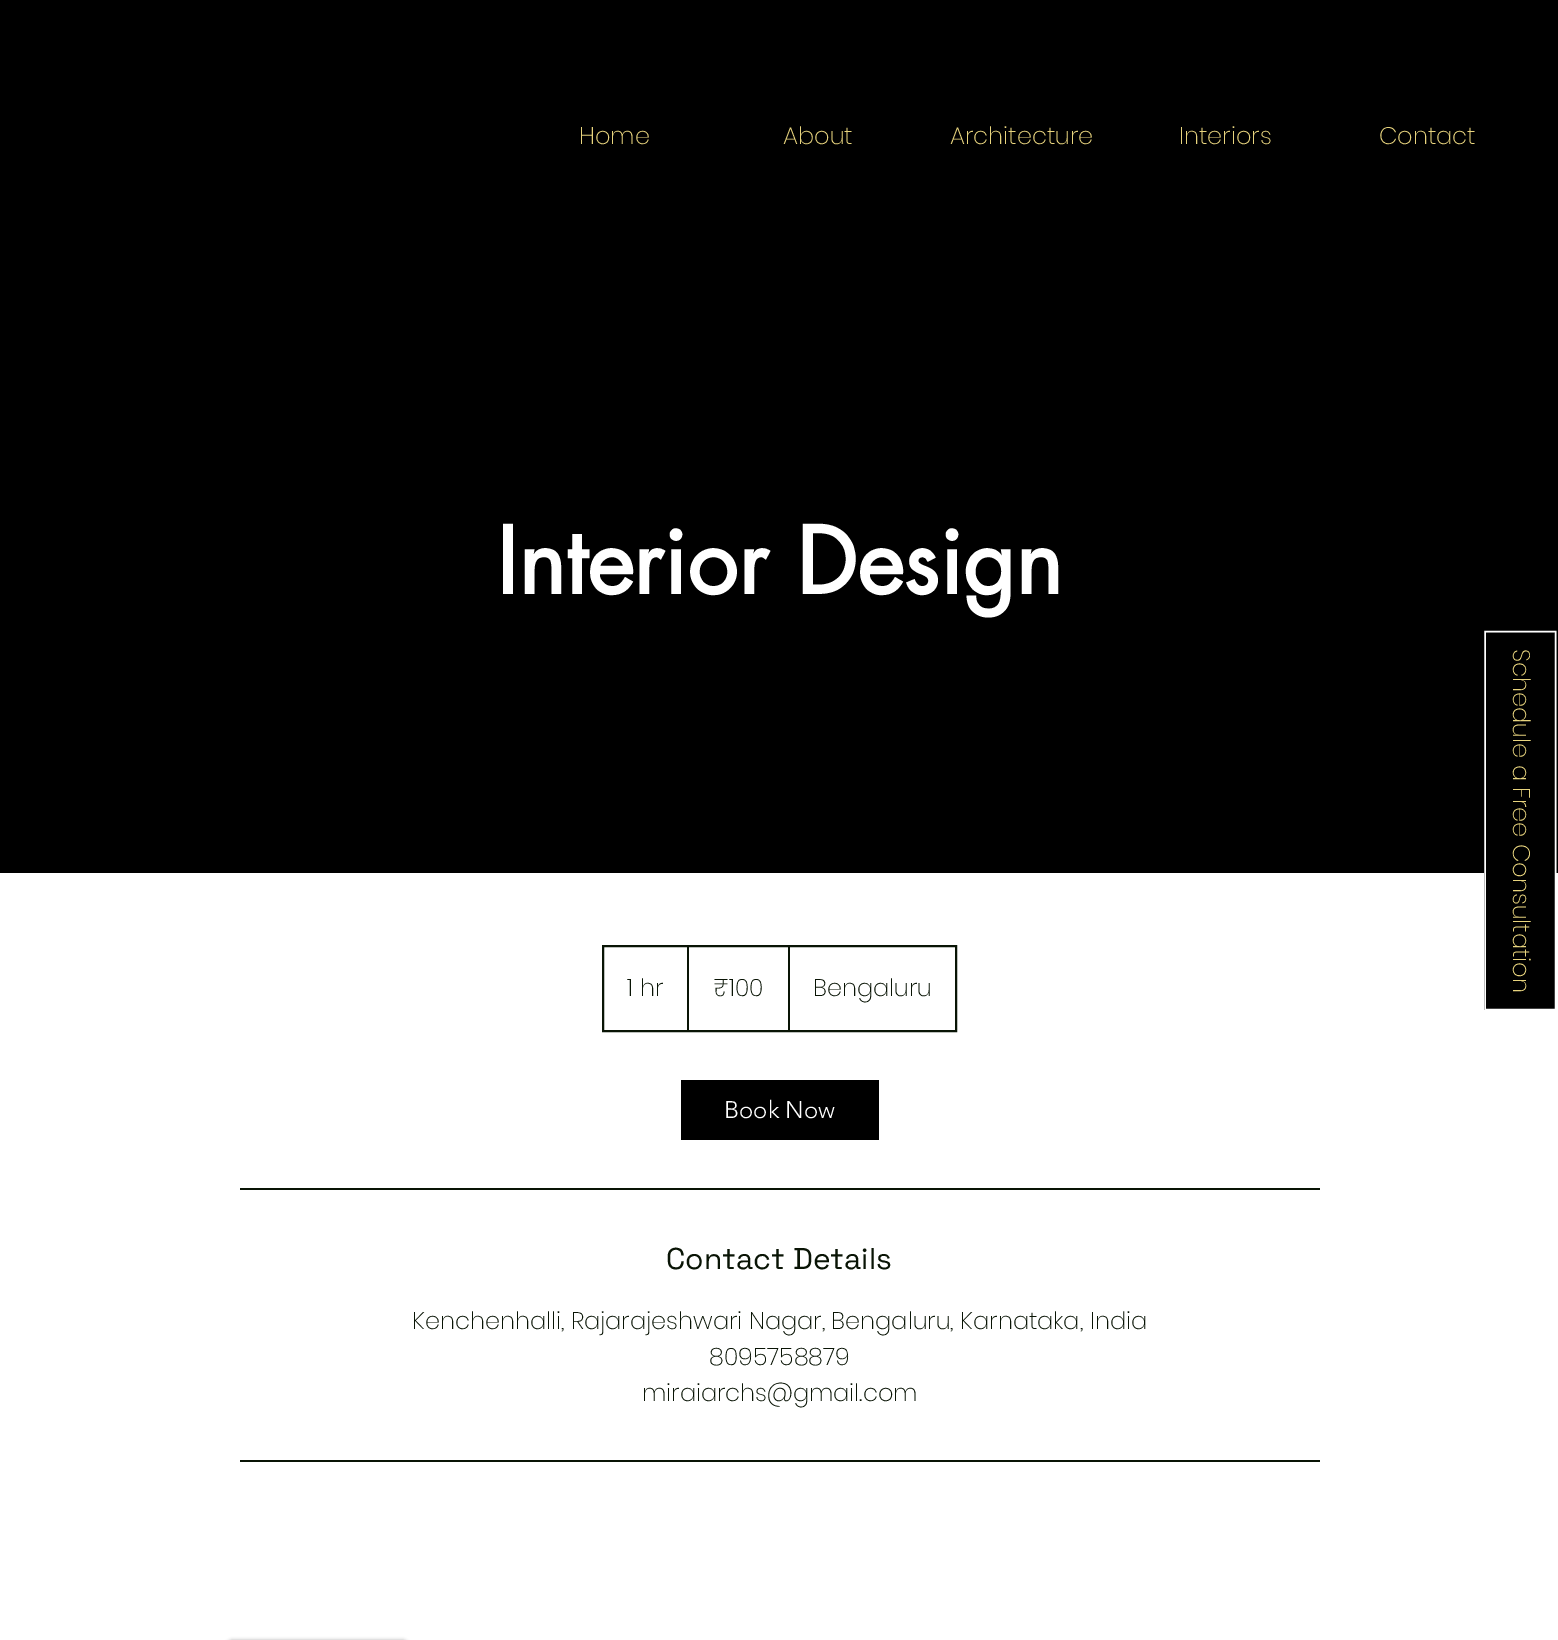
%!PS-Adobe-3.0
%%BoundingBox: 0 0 1558 1640
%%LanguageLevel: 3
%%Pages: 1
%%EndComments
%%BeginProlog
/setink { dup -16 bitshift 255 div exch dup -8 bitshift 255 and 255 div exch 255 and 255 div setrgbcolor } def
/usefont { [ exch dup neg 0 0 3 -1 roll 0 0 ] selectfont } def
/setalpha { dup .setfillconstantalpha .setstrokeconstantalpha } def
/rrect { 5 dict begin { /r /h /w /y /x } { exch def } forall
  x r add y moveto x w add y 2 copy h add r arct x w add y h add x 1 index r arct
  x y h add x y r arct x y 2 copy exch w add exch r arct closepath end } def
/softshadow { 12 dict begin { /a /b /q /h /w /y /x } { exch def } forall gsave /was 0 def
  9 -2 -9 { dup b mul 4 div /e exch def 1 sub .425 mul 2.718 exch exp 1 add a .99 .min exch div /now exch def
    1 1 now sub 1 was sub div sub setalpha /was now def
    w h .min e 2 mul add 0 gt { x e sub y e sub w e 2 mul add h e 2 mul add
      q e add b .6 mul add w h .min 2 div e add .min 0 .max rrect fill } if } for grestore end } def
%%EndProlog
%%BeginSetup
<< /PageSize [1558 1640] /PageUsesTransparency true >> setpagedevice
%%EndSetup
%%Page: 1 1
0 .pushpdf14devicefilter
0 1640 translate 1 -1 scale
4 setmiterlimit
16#FFFFFF setink
0 0 1558 1640 rectfill
16#000000 setink
0 0 1558 873 rectfill
/Poppins-ExtraLight 24 usefont
16#E8D47E setink
[
    [(Home) 579 144]
    [(About) 783 144]
    [(Architecture) 950 144]
    [(Interiors) 1179 144]
    [(Contact) 1379 144]
] { aload pop moveto show } forall
/futura-Bold 90 usefont
16#FFFFFF setink
496 594 moveto (Interior Design) show
16#091405 setink
2 setlinewidth
603 946 353 85 rectstroke
/Poppins-ExtraLight 24 usefont
627 996 moveto (1 hr) show
687 947 2 84 rectfill
713 996 moveto (₹100) show
788 947 2 84 rectfill
813 996 moveto (Bengaluru) show
16#000000 setink
681 1080 198 60 rectfill
/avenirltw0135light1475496-Light 24 usefont
16#FFFFFF setink
724 1118 moveto (Book Now) show
16#091405 setink
240 1188 1080 2 rectfill
/SpaceGrotesk-Regular 30 usefont
666 1269 moveto (Contact Details) show
/Poppins-ExtraLight 24 usefont
[
    [(Kenchenhalli, Rajarajeshwari Nagar, Bengaluru, Karnataka, India) 412 1329]
    [(8095758879) 709 1365]
    [(miraiarchs@gmail.com) 642 1401]
] { aload pop moveto show } forall
240 1460 1080 2 rectfill
16#000000 setink
1484 873 71 137 rectfill
16#FFFFFF setink
1.5 setlinewidth
1555.5 631.5 moveto 1555.5 1009.5 lineto 1485 1009.5 lineto 1485 631.5 lineto closepath stroke
16#E8D47E setink
gsave 1513 649 translate 90 rotate 0 0 moveto (Schedule a Free Consultation) show grestore
16#000000 setink
227 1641 181 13 8 2 0.5 softshadow
.poppdf14devicefilter showpage
%%EOF
